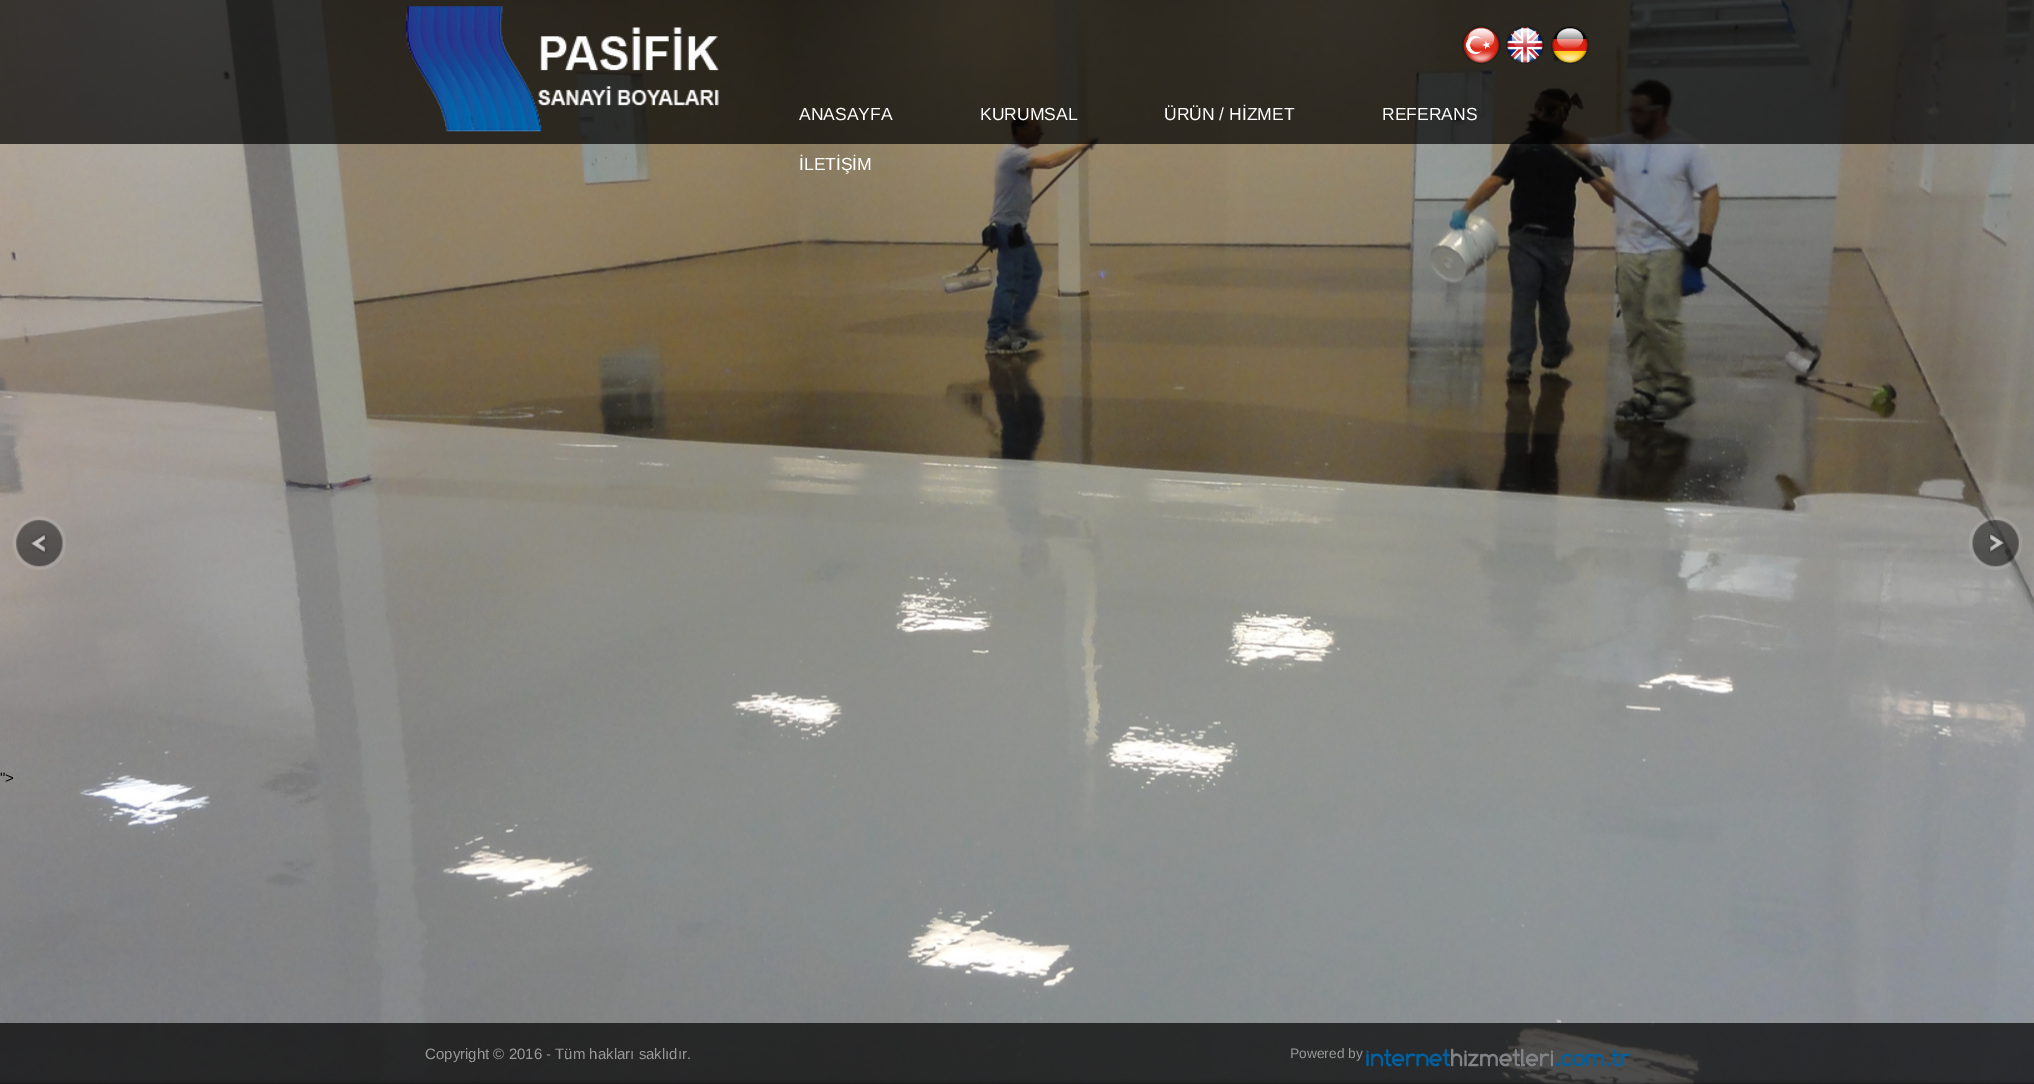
%!PS-Adobe-3.0
%%BoundingBox: 0 0 2034 1084
%%LanguageLevel: 3
%%Pages: 1
%%EndComments
%%BeginProlog
/setink { dup -16 bitshift 255 div exch dup -8 bitshift 255 and 255 div exch 255 and 255 div setrgbcolor } def
/usefont { [ exch dup neg 0 0 3 -1 roll 0 0 ] selectfont } def
/setalpha { dup .setfillconstantalpha .setstrokeconstantalpha } def
/rrect { 5 dict begin { /r /h /w /y /x } { exch def } forall
  x r add y moveto x w add y 2 copy h add r arct x w add y h add x 1 index r arct
  x y h add x y r arct x y 2 copy exch w add exch r arct closepath end } def
/softshadow { 12 dict begin { /a /b /q /h /w /y /x } { exch def } forall gsave /was 0 def
  9 -2 -9 { dup b mul 4 div /e exch def 1 sub .425 mul 2.718 exch exp 1 add a .99 .min exch div /now exch def
    1 1 now sub 1 was sub div sub setalpha /was now def
    w h .min e 2 mul add 0 gt { x e sub y e sub w e 2 mul add h e 2 mul add
      q e add b .6 mul add w h .min 2 div e add .min 0 .max rrect fill } if } for grestore end } def
/drawimage { 5 dict begin { /h /w /y /x /name } { exch def } forall
  gsave x y translate w h scale
  w h 8 [w 0 0 h 0 0] name (r) file false 3 colorimage grestore end } def
%%EndProlog
%%BeginSetup
<< /PageSize [2034 1084] /PageUsesTransparency true >> setpagedevice
%%EndSetup
%%Page: 1 1
0 .pushpdf14devicefilter
0 1084 translate 1 -1 scale
4 setmiterlimit
16#FFFFFF setink
0 0 2034 1084 rectfill
(img1.raw) 0 0 2034 1084 drawimage
0.7 setalpha
16#000000 setink
0 0 2034 144 rectfill
1 setalpha
(img2.raw) 406 6 313 126 drawimage
(img3.raw) 1462 26 39 38 drawimage
(img4.raw) 1506 26 38 38 drawimage
(img5.raw) 1551 26 38 38 drawimage
/LiberationSans-Regular 17.5 usefont
16#FFFFFF setink
[
    [(ANASAYFA) 799 120]
    [(KURUMSAL) 980 120]
    [(ÜRÜN / HİZMET) 1164 120]
    [(REFERANS) 1382 120]
    [(İLETİŞİM) 799 170]
] { aload pop moveto show } forall
(img6.raw) 12 516 54 54 drawimage
(img7.raw) 1969 516 54 54 drawimage
16#000000 setink
0 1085 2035 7 0 2.5 1 softshadow
/LiberationSans-Regular 15 usefont
0 783 moveto (">) show
0.7 setalpha
0 1023 2034 61 rectfill
1 setalpha
16#999999 setink
425 1059 moveto (Copyright © 2016 - Tüm hakları saklıdır.) show
/LiberationSans-Regular 13.75 usefont
1290 1058 moveto (Powered by) show
(img8.raw) 1366 1048 264 19 drawimage
.poppdf14devicefilter showpage
%%EOF
